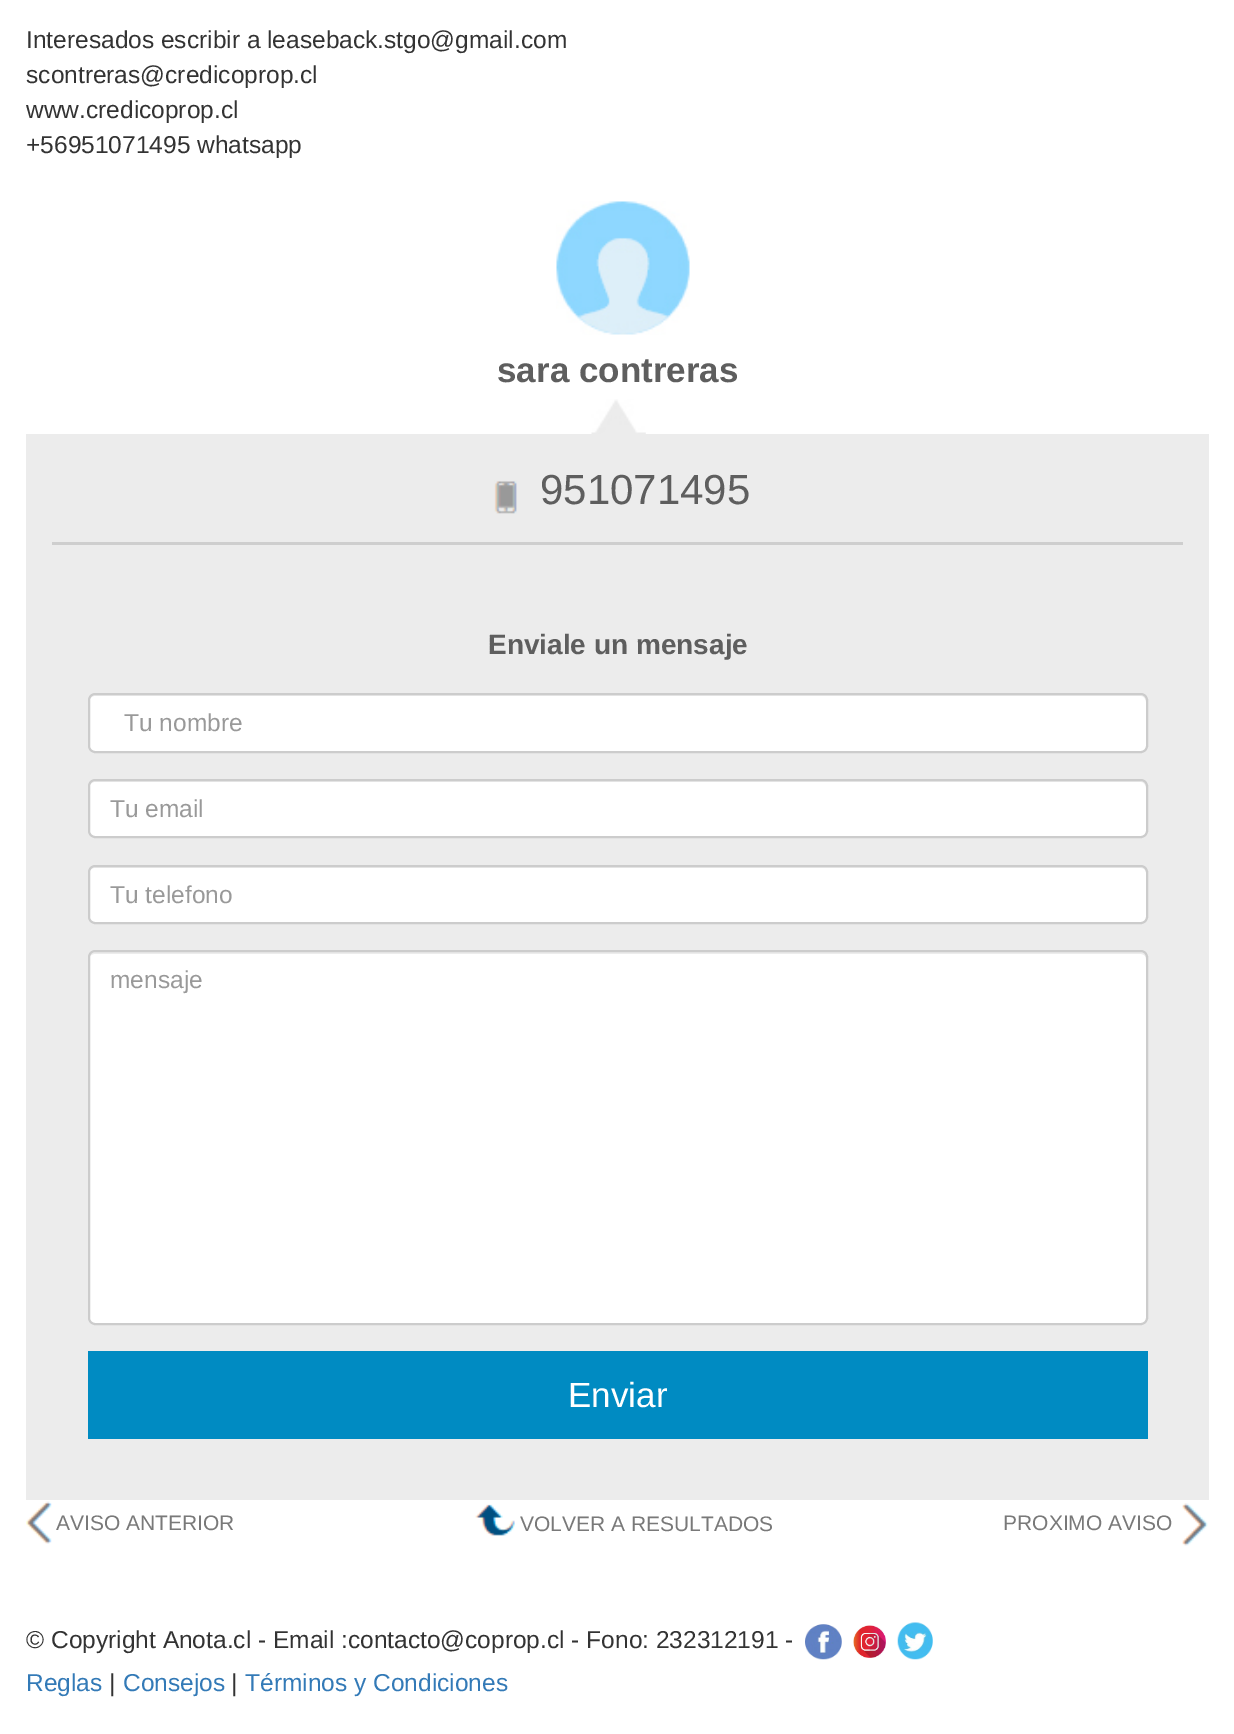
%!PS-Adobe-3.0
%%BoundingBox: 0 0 1234 1734
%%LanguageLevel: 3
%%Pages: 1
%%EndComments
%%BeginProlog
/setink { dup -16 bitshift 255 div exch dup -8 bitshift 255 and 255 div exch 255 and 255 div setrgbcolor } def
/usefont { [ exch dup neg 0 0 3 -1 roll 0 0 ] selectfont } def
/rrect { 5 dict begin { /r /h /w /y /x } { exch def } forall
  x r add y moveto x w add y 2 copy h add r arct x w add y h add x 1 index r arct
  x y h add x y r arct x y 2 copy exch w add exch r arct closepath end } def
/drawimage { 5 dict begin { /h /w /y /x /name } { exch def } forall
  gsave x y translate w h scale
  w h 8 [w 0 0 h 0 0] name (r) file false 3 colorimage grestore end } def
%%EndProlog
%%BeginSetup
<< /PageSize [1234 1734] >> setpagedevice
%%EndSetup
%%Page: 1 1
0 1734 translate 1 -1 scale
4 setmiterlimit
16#FFFFFF setink
0 0 1234 1734 rectfill
/LiberationSans-Regular 24.5 usefont
16#333333 setink
[
    [(Interesados escribir a leaseback.stgo@gmail.com) 26 48]
    [(scontreras@credicoprop.cl) 26 83]
    [(www.credicoprop.cl) 26 118]
    [(+56951071495 whatsapp) 26 153]
] { aload pop moveto show } forall
(img1.raw) 556 201 134 134 drawimage
/LiberationSans-Bold 35 usefont
16#5E5E5E setink
497 382 moveto (sara contreras) show
(img2.raw) 591 399 55 35 drawimage
16#ECECEC setink
26 434 1183 1066 rectfill
(img3.raw) 494 480 23 34 drawimage
/LiberationSans-Regular 42 usefont
16#5E5E5E setink
540 504 moveto (951071495) show
16#CECECE setink
52 542 1131 3 rectfill
/LiberationSans-Bold 28 usefont
16#5E5E5E setink
488 654 moveto (Enviale un mensaje) show
16#FFFFFF setink
88 693 1060 60 7 rrect fill
16#ECECEC setink
94 696 moveto 1141 696 lineto 1144 696 1146 699 1146 702 curveto 1146 700 lineto 1146 697 1144 695 1141 695 curveto 94 695 lineto 91 695 89 697 89 700 curveto 89 702 lineto 89 699 92 696 94 696 curveto closepath fill
16#CCCCCC setink
2 setlinewidth
89 694 1058 58 6 rrect stroke
/LiberationSans-Regular 24.5 usefont
16#999999 setink
124 731 moveto (Tu nombre) show
16#FFFFFF setink
88 779 1060 59 7 rrect fill
16#ECECEC setink
94 782 moveto 1141 782 lineto 1144 782 1146 785 1146 788 curveto 1146 786 lineto 1146 783 1144 781 1141 781 curveto 94 781 lineto 91 781 89 783 89 786 curveto 89 788 lineto 89 785 92 782 94 782 curveto closepath fill
16#CCCCCC setink
89 780 1058 57 6 rrect stroke
16#999999 setink
110 817 moveto (Tu email) show
16#FFFFFF setink
88 865 1060 59 7 rrect fill
16#ECECEC setink
94 868 moveto 1141 868 lineto 1144 868 1146 870 1146 873 curveto 1146 871 lineto 1146 868 1144 866 1141 866 curveto 94 866 lineto 91 866 89 868 89 871 curveto 89 873 lineto 89 870 92 868 94 868 curveto closepath fill
16#CCCCCC setink
89 866 1058 57 6 rrect stroke
16#999999 setink
110 903 moveto (Tu telefono) show
16#FFFFFF setink
88 950 1060 375 7 rrect fill
16#ECECEC setink
94 954 moveto 1141 954 lineto 1144 954 1146 956 1146 959 curveto 1146 957 lineto 1146 954 1144 952 1141 952 curveto 94 952 lineto 91 952 89 954 89 957 curveto 89 959 lineto 89 956 92 954 94 954 curveto closepath fill
16#CCCCCC setink
89 951 1058 373 6 rrect stroke
16#999999 setink
110 988 moveto (mensaje) show
16#008BC2 setink
88 1351 1060 88 rectfill
/LiberationSans-Regular 35 usefont
16#FFFFFF setink
568 1407 moveto (Enviar) show
(img4.raw) 26 1501 26 43 drawimage
/LiberationSans-Regular 21 usefont
16#797979 setink
56 1530 moveto (AVISO ANTERIOR) show
(img5.raw) 475 1504 40 32 drawimage
520 1531 moveto (VOLVER A RESULTADOS) show
1003 1530 moveto (PROXIMO AVISO) show
(img6.raw) 1182 1503 26 43 drawimage
/LiberationSans-Regular 24.5 usefont
16#333333 setink
26 1648 moveto (© Copyright Anota.cl - Email :contacto@coprop.cl - Fono: 232312191 -) show
(img7.raw) 805 1624 37 36 drawimage
(img8.raw) 853 1625 33 33 drawimage
(img9.raw) 897 1622 36 38 drawimage
16#337AB7 setink
26 1691 moveto (Reglas) show
16#333333 setink
109 1691 moveto (|) show
16#337AB7 setink
123 1691 moveto (Consejos) show
16#333333 setink
231 1691 moveto (|) show
16#337AB7 setink
245 1691 moveto (Términos y Condiciones) show
showpage
%%EOF
